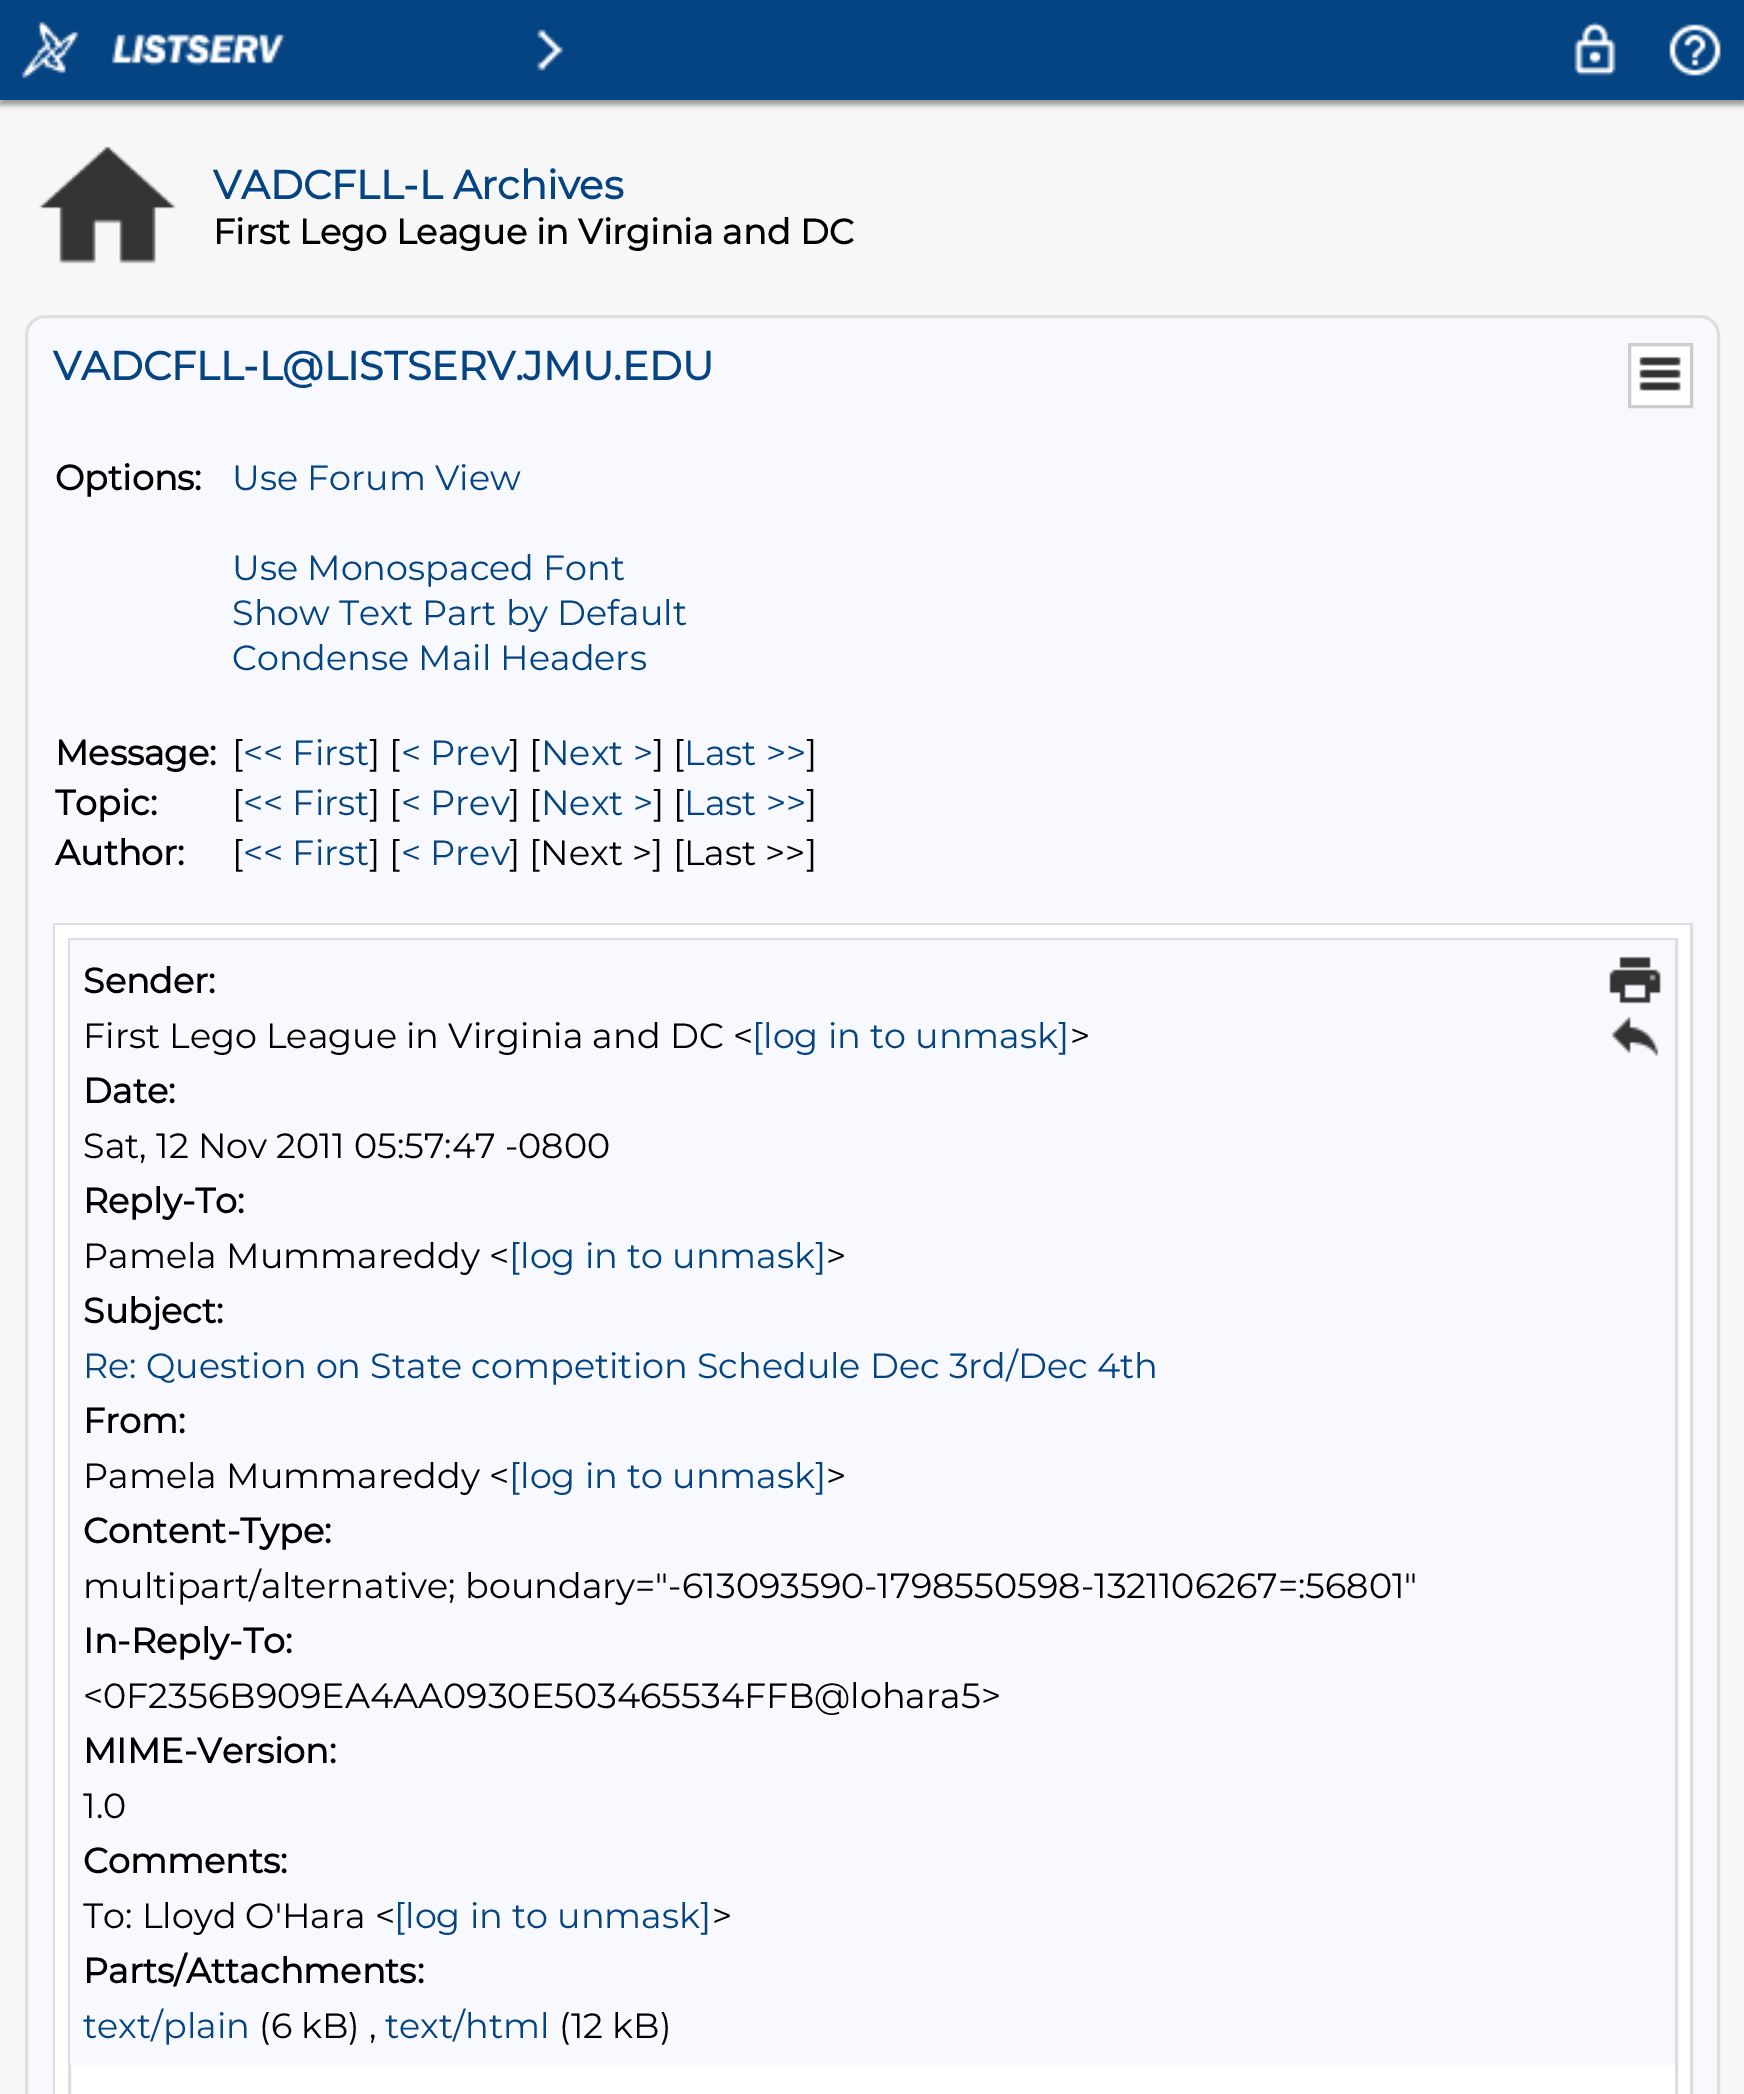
%!PS-Adobe-3.0
%%BoundingBox: 0 0 1744 2094
%%LanguageLevel: 3
%%Pages: 1
%%EndComments
%%BeginProlog
/setink { dup -16 bitshift 255 div exch dup -8 bitshift 255 and 255 div exch 255 and 255 div setrgbcolor } def
/usefont { [ exch dup neg 0 0 3 -1 roll 0 0 ] selectfont } def
/setalpha { dup .setfillconstantalpha .setstrokeconstantalpha } def
/rrect { 5 dict begin { /r /h /w /y /x } { exch def } forall
  x r add y moveto x w add y 2 copy h add r arct x w add y h add x 1 index r arct
  x y h add x y r arct x y 2 copy exch w add exch r arct closepath end } def
/softshadow { 12 dict begin { /a /b /q /h /w /y /x } { exch def } forall gsave /was 0 def
  9 -2 -9 { dup b mul 4 div /e exch def 1 sub .425 mul 2.718 exch exp 1 add a .99 .min exch div /now exch def
    1 1 now sub 1 was sub div sub setalpha /was now def
    w h .min e 2 mul add 0 gt { x e sub y e sub w e 2 mul add h e 2 mul add
      q e add b .6 mul add w h .min 2 div e add .min 0 .max rrect fill } if } for grestore end } def
/drawimage { 5 dict begin { /h /w /y /x /name } { exch def } forall
  gsave x y translate w h scale
  w h 8 [w 0 0 h 0 0] name (r) file false 3 colorimage grestore end } def
%%EndProlog
%%BeginSetup
<< /PageSize [1744 2094] /PageUsesTransparency true >> setpagedevice
%%EndSetup
%%Page: 1 1
0 .pushpdf14devicefilter
0 2094 translate 1 -1 scale
4 setmiterlimit
16#F7F7F7 setink
0 0 1744 2094 rectfill
16#999999 setink
0 5 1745 100 0 2.5 1 softshadow
16#054483 setink
0 0 1744 100 rectfill
(img1.raw) 21 21 58 58 drawimage
(img2.raw) 111 34 175 32 drawimage
(img3.raw) 536 29 28 42 drawimage
(img4.raw) 1574 22 42 54 drawimage
(img5.raw) 1669 24 52 52 drawimage
(img6.raw) 39 146 137 118 drawimage
/Montserrat-Bold 40 usefont
213 199 moveto (VADCFLL-L Archives) show
/Montserrat-Bold 35 usefont
16#000000 setink
213 244 moveto (First Lego League in Virginia and DC) show
16#F7F9FE setink
26.5 316.5 1692 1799 18.5 rrect gsave fill grestore
16#DEDEDE setink
3 setlinewidth
stroke
/Montserrat-Bold 40 usefont
16#054483 setink
53 380 moveto (VADCFLL-L@LISTSERV.JMU.EDU) show
16#FFFFFF setink
1629.5 344.5 moveto 1691.5 344.5 lineto 1691.5 406.5 lineto 1629.5 406.5 lineto closepath gsave fill grestore
16#CCCCCC setink
stroke
(img7.raw) 1639 356 42 35 drawimage
/Montserrat-Bold 35 usefont
16#000000 setink
55 490 moveto (Options:) show
/Montserrat-Thin 35 usefont
16#054483 setink
[
    [(Use Forum View) 232 490]
    [(Use Monospaced Font) 232 580]
    [(Show Text Part by Default) 232 625]
    [(Condense Mail Headers) 232 670]
] { aload pop moveto show } forall
/Montserrat-Bold 35 usefont
16#000000 setink
55 765 moveto (Message:) show
/Montserrat-Thin 35 usefont
232 765 moveto ([) show
16#054483 setink
243 765 moveto (<< First) show
16#000000 setink
369 765 moveto (] [) show
16#054483 setink
401 765 moveto (< Prev) show
16#000000 setink
509 765 moveto (] [) show
16#054483 setink
541 765 moveto (Next >) show
16#000000 setink
653 765 moveto (] [) show
16#054483 setink
684 765 moveto (Last >>) show
16#000000 setink
806 765 moveto (]) show
/Montserrat-Bold 35 usefont
55 815 moveto (Topic:) show
/Montserrat-Thin 35 usefont
232 815 moveto ([) show
16#054483 setink
243 815 moveto (<< First) show
16#000000 setink
369 815 moveto (] [) show
16#054483 setink
401 815 moveto (< Prev) show
16#000000 setink
509 815 moveto (] [) show
16#054483 setink
541 815 moveto (Next >) show
16#000000 setink
653 815 moveto (] [) show
16#054483 setink
684 815 moveto (Last >>) show
16#000000 setink
806 815 moveto (]) show
/Montserrat-Bold 35 usefont
55 865 moveto (Author:) show
/Montserrat-Thin 35 usefont
232 865 moveto ([) show
16#054483 setink
243 865 moveto (<< First) show
16#000000 setink
369 865 moveto (] [) show
16#054483 setink
401 865 moveto (< Prev) show
16#000000 setink
509 865 moveto (] [Next >] [Last >>]) show
16#DEDEDE setink
54.5 924.5 1637 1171 rectstroke
16#FFFFFF setink
55 925 1635 1169 rectfill
16#DEDEDE setink
69.5 939.5 1607 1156 rectstroke
16#F7F9FE setink
70 940 1605 1125 rectfill
/Montserrat-Bold 35 usefont
16#000000 setink
83 993 moveto (Sender:) show
/Montserrat-Thin 35 usefont
83 1048 moveto (First Lego League in Virginia and DC <) show
16#054483 setink
752 1048 moveto ([log in to unmask]) show
16#000000 setink
1070 1048 moveto (>) show
/Montserrat-Bold 35 usefont
83 1103 moveto (Date:) show
/Montserrat-Thin 35 usefont
83 1158 moveto (Sat, 12 Nov 2011 05:57:47 -0800) show
/Montserrat-Bold 35 usefont
83 1213 moveto (Reply-To:) show
/Montserrat-Thin 35 usefont
83 1268 moveto (Pamela Mummareddy <) show
16#054483 setink
509 1268 moveto ([log in to unmask]) show
16#000000 setink
826 1268 moveto (>) show
/Montserrat-Bold 35 usefont
83 1323 moveto (Subject:) show
/Montserrat-Thin 35 usefont
16#054483 setink
83 1378 moveto (Re: Question on State competition Schedule Dec 3rd/Dec 4th) show
/Montserrat-Bold 35 usefont
16#000000 setink
83 1433 moveto (From:) show
/Montserrat-Thin 35 usefont
83 1488 moveto (Pamela Mummareddy <) show
16#054483 setink
509 1488 moveto ([log in to unmask]) show
16#000000 setink
826 1488 moveto (>) show
/Montserrat-Bold 35 usefont
83 1543 moveto (Content-Type:) show
/Montserrat-Thin 35 usefont
83 1598 moveto (multipart/alternative; boundary="-613093590-1798550598-1321106267=:56801") show
/Montserrat-Bold 35 usefont
83 1653 moveto (In-Reply-To:) show
/Montserrat-Thin 35 usefont
83 1708 moveto (<0F2356B909EA4AA0930E503465534FFB@lohara5>) show
/Montserrat-Bold 35 usefont
83 1763 moveto (MIME-Version:) show
/Montserrat-Thin 35 usefont
83 1818 moveto (1.0) show
/Montserrat-Bold 35 usefont
83 1873 moveto (Comments:) show
/Montserrat-Thin 35 usefont
83 1928 moveto (To: Lloyd O'Hara <) show
16#054483 setink
394 1928 moveto ([log in to unmask]) show
16#000000 setink
712 1928 moveto (>) show
/Montserrat-Bold 35 usefont
83 1983 moveto (Parts/Attachments:) show
/Montserrat-Thin 35 usefont
16#054483 setink
83 2038 moveto (text/plain) show
16#000000 setink
259 2038 moveto (\(6 kB\) ,) show
16#054483 setink
385 2038 moveto (text/html) show
16#000000 setink
559 2038 moveto (\(12 kB\)) show
(img8.raw) 1609 956 52 48 drawimage
(img9.raw) 1611 1016 48 40 drawimage
.poppdf14devicefilter showpage
%%EOF
